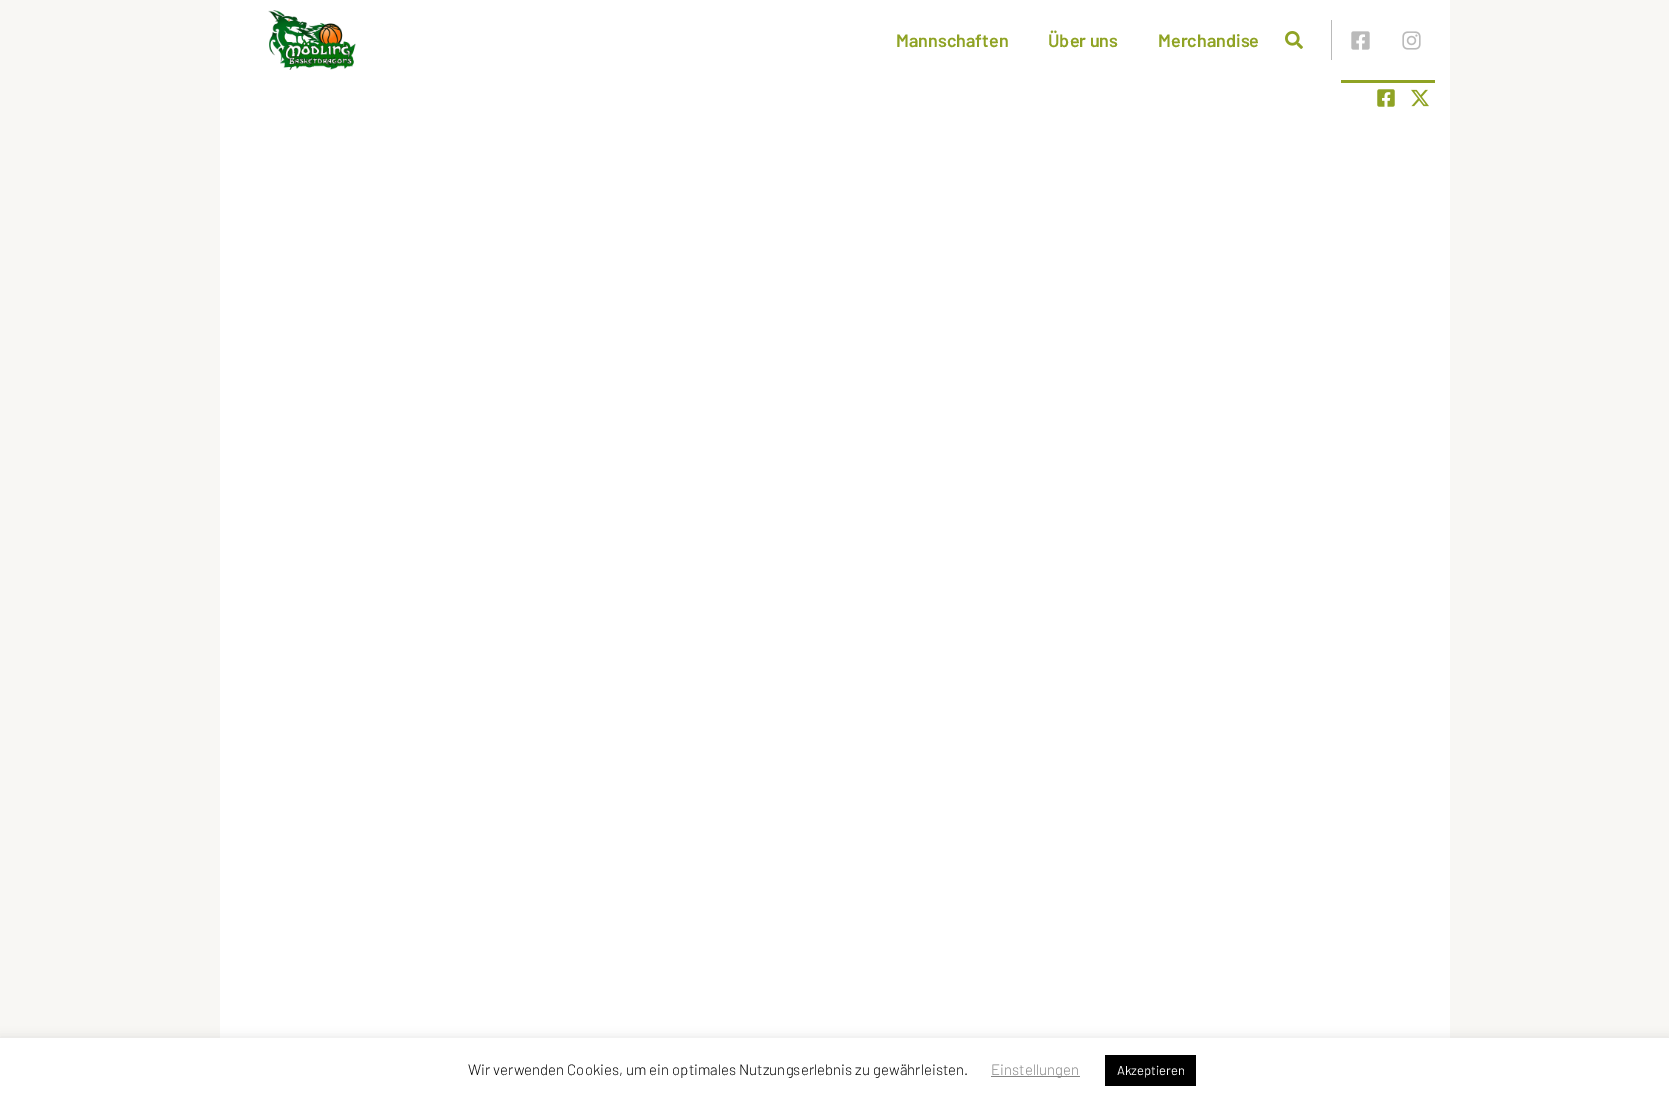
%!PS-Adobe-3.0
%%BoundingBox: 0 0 1669 1103
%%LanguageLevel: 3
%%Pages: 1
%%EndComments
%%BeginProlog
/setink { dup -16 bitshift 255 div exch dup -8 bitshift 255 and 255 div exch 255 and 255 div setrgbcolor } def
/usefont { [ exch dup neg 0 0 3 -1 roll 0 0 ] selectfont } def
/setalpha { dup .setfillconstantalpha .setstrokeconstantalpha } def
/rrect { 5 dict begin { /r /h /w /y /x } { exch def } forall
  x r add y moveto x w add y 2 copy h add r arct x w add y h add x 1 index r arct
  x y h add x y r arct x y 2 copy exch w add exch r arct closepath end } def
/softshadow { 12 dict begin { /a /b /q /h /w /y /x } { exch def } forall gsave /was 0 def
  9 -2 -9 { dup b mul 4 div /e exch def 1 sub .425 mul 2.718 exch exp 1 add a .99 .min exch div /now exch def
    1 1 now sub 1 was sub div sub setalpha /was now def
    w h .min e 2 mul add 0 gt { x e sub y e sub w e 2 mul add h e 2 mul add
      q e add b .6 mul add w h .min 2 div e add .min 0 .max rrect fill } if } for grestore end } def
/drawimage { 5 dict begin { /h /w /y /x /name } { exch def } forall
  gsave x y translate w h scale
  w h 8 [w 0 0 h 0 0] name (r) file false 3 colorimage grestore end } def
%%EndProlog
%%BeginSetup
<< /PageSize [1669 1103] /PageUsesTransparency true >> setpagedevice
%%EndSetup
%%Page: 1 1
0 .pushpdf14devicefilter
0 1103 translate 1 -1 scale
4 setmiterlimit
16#F8F7F4 setink
0 0 1669 1103 rectfill
16#FFFFFF setink
220 0 1230 1038 rectfill
(img1.raw) 268 10 88 60 drawimage
/Barlow-SemiBold 18 usefont
16#8FA324 setink
[
    [(Mannschaften) 896 47]
    [(Über uns) 1048 47]
    [(Merchandise) 1158 47]
] { aload pop moveto show } forall
(img2.raw) 1285 31 18 18 drawimage
16#BABABA setink
1331 20 1 40 rectfill
(img3.raw) 1351 31 19 19 drawimage
(img4.raw) 1402 31 19 19 drawimage
16#8FA324 setink
1341 80 94 3 rectfill
(img5.raw) 1377 89 18 18 drawimage
(img6.raw) 1411 89 18 18 drawimage
16#ACABAB setink
0 1037 1669 65 0 5 0.3 softshadow
16#FFFFFF setink
0 1038 1669 65 rectfill
/Barlow-Light 15 usefont
16#000000 setink
468 1075 moveto (Wir verwenden Cookies, um ein optimales Nutzungserlebnis zu gewährleisten.) show
16#848484 setink
991 1076 89 1 rectfill
991 1075 moveto (Einstellungen) show
16#000000 setink
1105 1055 91 31 rectfill
/Barlow-Regular 13 usefont
16#FFFFFF setink
1117 1075 moveto (Akzeptieren) show
.poppdf14devicefilter showpage
%%EOF
